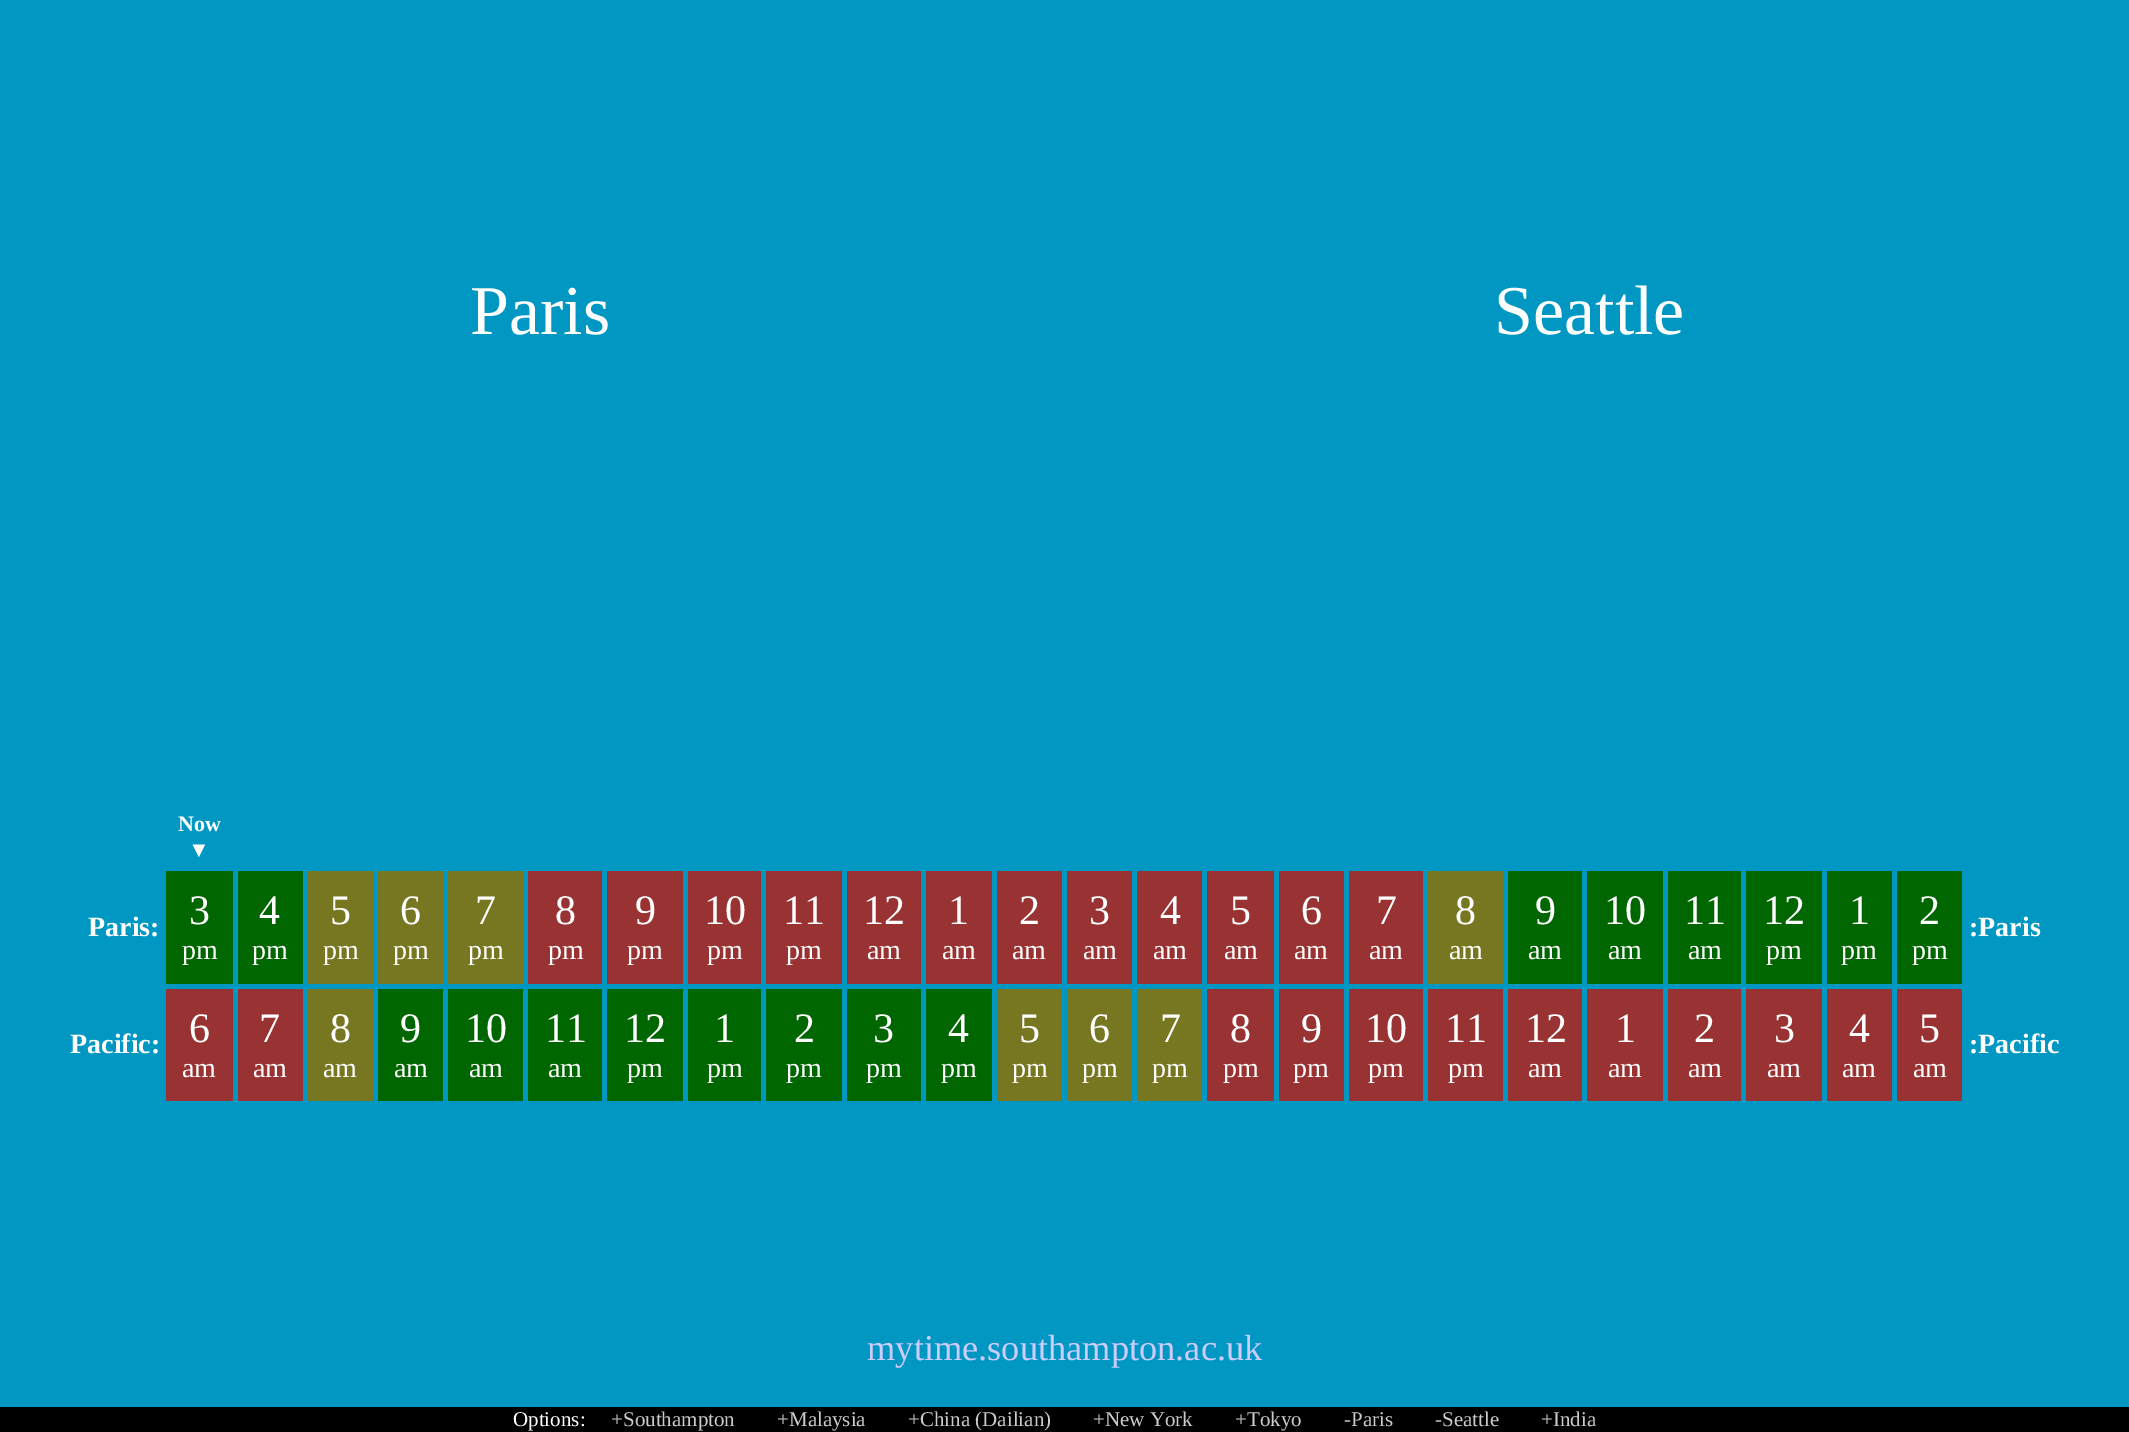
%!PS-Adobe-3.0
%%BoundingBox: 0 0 2129 1432
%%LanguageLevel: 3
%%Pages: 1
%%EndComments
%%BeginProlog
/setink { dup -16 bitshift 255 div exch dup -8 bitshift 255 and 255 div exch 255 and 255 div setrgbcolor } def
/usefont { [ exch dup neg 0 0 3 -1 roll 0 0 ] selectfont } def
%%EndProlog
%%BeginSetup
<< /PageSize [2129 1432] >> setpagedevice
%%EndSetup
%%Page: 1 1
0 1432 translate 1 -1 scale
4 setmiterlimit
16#0098C3 setink
0 0 2129 1432 rectfill
/LiberationSerif-Regular 70 usefont
16#FFFFFF setink
470 334 moveto (Paris) show
1494 334 moveto (Seattle) show
/LiberationSerif-Bold 22 usefont
178 831 moveto (Now) show
188 857 moveto (▼) show
/LiberationSerif-Bold 28 usefont
88 936 moveto (Paris:) show
16#006600 setink
166 871 67 113 rectfill
/LiberationSerif-Regular 42 usefont
16#FFFFFF setink
189 924 moveto (3) show
/LiberationSerif-Regular 28 usefont
182 959 moveto (pm) show
16#006600 setink
238 871 65 113 rectfill
/LiberationSerif-Regular 42 usefont
16#FFFFFF setink
259 924 moveto (4) show
/LiberationSerif-Regular 28 usefont
252 959 moveto (pm) show
16#777722 setink
308 871 65 113 rectfill
/LiberationSerif-Regular 42 usefont
16#FFFFFF setink
330 924 moveto (5) show
/LiberationSerif-Regular 28 usefont
323 959 moveto (pm) show
16#777722 setink
378 871 65 113 rectfill
/LiberationSerif-Regular 42 usefont
16#FFFFFF setink
400 924 moveto (6) show
/LiberationSerif-Regular 28 usefont
393 959 moveto (pm) show
16#777722 setink
448 871 75 113 rectfill
/LiberationSerif-Regular 42 usefont
16#FFFFFF setink
475 924 moveto (7) show
/LiberationSerif-Regular 28 usefont
468 959 moveto (pm) show
16#993333 setink
528 871 74 113 rectfill
/LiberationSerif-Regular 42 usefont
16#FFFFFF setink
555 924 moveto (8) show
/LiberationSerif-Regular 28 usefont
548 959 moveto (pm) show
16#993333 setink
607 871 76 113 rectfill
/LiberationSerif-Regular 42 usefont
16#FFFFFF setink
635 924 moveto (9) show
/LiberationSerif-Regular 28 usefont
627 959 moveto (pm) show
16#993333 setink
688 871 73 113 rectfill
/LiberationSerif-Regular 42 usefont
16#FFFFFF setink
704 924 moveto (10) show
/LiberationSerif-Regular 28 usefont
707 959 moveto (pm) show
16#993333 setink
766 871 76 113 rectfill
/LiberationSerif-Regular 42 usefont
16#FFFFFF setink
783 924 moveto (11) show
/LiberationSerif-Regular 28 usefont
786 959 moveto (pm) show
16#993333 setink
847 871 74 113 rectfill
/LiberationSerif-Regular 42 usefont
16#FFFFFF setink
863 924 moveto (12) show
/LiberationSerif-Regular 28 usefont
867 959 moveto (am) show
16#993333 setink
926 871 66 113 rectfill
/LiberationSerif-Regular 42 usefont
16#FFFFFF setink
948 924 moveto (1) show
/LiberationSerif-Regular 28 usefont
942 959 moveto (am) show
16#993333 setink
997 871 65 113 rectfill
/LiberationSerif-Regular 42 usefont
16#FFFFFF setink
1019 924 moveto (2) show
/LiberationSerif-Regular 28 usefont
1012 959 moveto (am) show
16#993333 setink
1067 871 65 113 rectfill
/LiberationSerif-Regular 42 usefont
16#FFFFFF setink
1089 924 moveto (3) show
/LiberationSerif-Regular 28 usefont
1083 959 moveto (am) show
16#993333 setink
1137 871 65 113 rectfill
/LiberationSerif-Regular 42 usefont
16#FFFFFF setink
1160 924 moveto (4) show
/LiberationSerif-Regular 28 usefont
1153 959 moveto (am) show
16#993333 setink
1207 871 67 113 rectfill
/LiberationSerif-Regular 42 usefont
16#FFFFFF setink
1230 924 moveto (5) show
/LiberationSerif-Regular 28 usefont
1224 959 moveto (am) show
16#993333 setink
1279 871 65 113 rectfill
/LiberationSerif-Regular 42 usefont
16#FFFFFF setink
1301 924 moveto (6) show
/LiberationSerif-Regular 28 usefont
1294 959 moveto (am) show
16#993333 setink
1349 871 74 113 rectfill
/LiberationSerif-Regular 42 usefont
16#FFFFFF setink
1376 924 moveto (7) show
/LiberationSerif-Regular 28 usefont
1369 959 moveto (am) show
16#777722 setink
1428 871 75 113 rectfill
/LiberationSerif-Regular 42 usefont
16#FFFFFF setink
1455 924 moveto (8) show
/LiberationSerif-Regular 28 usefont
1449 959 moveto (am) show
16#006600 setink
1508 871 74 113 rectfill
/LiberationSerif-Regular 42 usefont
16#FFFFFF setink
1535 924 moveto (9) show
/LiberationSerif-Regular 28 usefont
1528 959 moveto (am) show
16#006600 setink
1587 871 76 113 rectfill
/LiberationSerif-Regular 42 usefont
16#FFFFFF setink
1604 924 moveto (10) show
/LiberationSerif-Regular 28 usefont
1608 959 moveto (am) show
16#006600 setink
1668 871 73 113 rectfill
/LiberationSerif-Regular 42 usefont
16#FFFFFF setink
1684 924 moveto (11) show
/LiberationSerif-Regular 28 usefont
1688 959 moveto (am) show
16#006600 setink
1746 871 76 113 rectfill
/LiberationSerif-Regular 42 usefont
16#FFFFFF setink
1763 924 moveto (12) show
/LiberationSerif-Regular 28 usefont
1766 959 moveto (pm) show
16#006600 setink
1827 871 65 113 rectfill
/LiberationSerif-Regular 42 usefont
16#FFFFFF setink
1849 924 moveto (1) show
/LiberationSerif-Regular 28 usefont
1841 959 moveto (pm) show
16#006600 setink
1897 871 65 113 rectfill
/LiberationSerif-Regular 42 usefont
16#FFFFFF setink
1919 924 moveto (2) show
/LiberationSerif-Regular 28 usefont
1912 959 moveto (pm) show
/LiberationSerif-Bold 28 usefont
1969 936 moveto (:Paris) show
70 1053 moveto (Pacific:) show
16#993333 setink
166 989 67 112 rectfill
/LiberationSerif-Regular 42 usefont
16#FFFFFF setink
189 1042 moveto (6) show
/LiberationSerif-Regular 28 usefont
182 1077 moveto (am) show
16#993333 setink
238 989 65 112 rectfill
/LiberationSerif-Regular 42 usefont
16#FFFFFF setink
259 1042 moveto (7) show
/LiberationSerif-Regular 28 usefont
253 1077 moveto (am) show
16#777722 setink
308 989 65 112 rectfill
/LiberationSerif-Regular 42 usefont
16#FFFFFF setink
330 1042 moveto (8) show
/LiberationSerif-Regular 28 usefont
323 1077 moveto (am) show
16#006600 setink
378 989 65 112 rectfill
/LiberationSerif-Regular 42 usefont
16#FFFFFF setink
400 1042 moveto (9) show
/LiberationSerif-Regular 28 usefont
394 1077 moveto (am) show
16#006600 setink
448 989 75 112 rectfill
/LiberationSerif-Regular 42 usefont
16#FFFFFF setink
465 1042 moveto (10) show
/LiberationSerif-Regular 28 usefont
469 1077 moveto (am) show
16#006600 setink
528 989 74 112 rectfill
/LiberationSerif-Regular 42 usefont
16#FFFFFF setink
545 1042 moveto (11) show
/LiberationSerif-Regular 28 usefont
548 1077 moveto (am) show
16#006600 setink
607 989 76 112 rectfill
/LiberationSerif-Regular 42 usefont
16#FFFFFF setink
624 1042 moveto (12) show
/LiberationSerif-Regular 28 usefont
627 1077 moveto (pm) show
16#006600 setink
688 989 73 112 rectfill
/LiberationSerif-Regular 42 usefont
16#FFFFFF setink
714 1042 moveto (1) show
/LiberationSerif-Regular 28 usefont
707 1077 moveto (pm) show
16#006600 setink
766 989 76 112 rectfill
/LiberationSerif-Regular 42 usefont
16#FFFFFF setink
794 1042 moveto (2) show
/LiberationSerif-Regular 28 usefont
786 1077 moveto (pm) show
16#006600 setink
847 989 74 112 rectfill
/LiberationSerif-Regular 42 usefont
16#FFFFFF setink
873 1042 moveto (3) show
/LiberationSerif-Regular 28 usefont
866 1077 moveto (pm) show
16#006600 setink
926 989 66 112 rectfill
/LiberationSerif-Regular 42 usefont
16#FFFFFF setink
948 1042 moveto (4) show
/LiberationSerif-Regular 28 usefont
941 1077 moveto (pm) show
16#777722 setink
997 989 65 112 rectfill
/LiberationSerif-Regular 42 usefont
16#FFFFFF setink
1019 1042 moveto (5) show
/LiberationSerif-Regular 28 usefont
1012 1077 moveto (pm) show
16#777722 setink
1067 989 65 112 rectfill
/LiberationSerif-Regular 42 usefont
16#FFFFFF setink
1089 1042 moveto (6) show
/LiberationSerif-Regular 28 usefont
1082 1077 moveto (pm) show
16#777722 setink
1137 989 65 112 rectfill
/LiberationSerif-Regular 42 usefont
16#FFFFFF setink
1160 1042 moveto (7) show
/LiberationSerif-Regular 28 usefont
1152 1077 moveto (pm) show
16#993333 setink
1207 989 67 112 rectfill
/LiberationSerif-Regular 42 usefont
16#FFFFFF setink
1230 1042 moveto (8) show
/LiberationSerif-Regular 28 usefont
1223 1077 moveto (pm) show
16#993333 setink
1279 989 65 112 rectfill
/LiberationSerif-Regular 42 usefont
16#FFFFFF setink
1301 1042 moveto (9) show
/LiberationSerif-Regular 28 usefont
1293 1077 moveto (pm) show
16#993333 setink
1349 989 74 112 rectfill
/LiberationSerif-Regular 42 usefont
16#FFFFFF setink
1365 1042 moveto (10) show
/LiberationSerif-Regular 28 usefont
1368 1077 moveto (pm) show
16#993333 setink
1428 989 75 112 rectfill
/LiberationSerif-Regular 42 usefont
16#FFFFFF setink
1445 1042 moveto (11) show
/LiberationSerif-Regular 28 usefont
1448 1077 moveto (pm) show
16#993333 setink
1508 989 74 112 rectfill
/LiberationSerif-Regular 42 usefont
16#FFFFFF setink
1525 1042 moveto (12) show
/LiberationSerif-Regular 28 usefont
1528 1077 moveto (am) show
16#993333 setink
1587 989 76 112 rectfill
/LiberationSerif-Regular 42 usefont
16#FFFFFF setink
1615 1042 moveto (1) show
/LiberationSerif-Regular 28 usefont
1608 1077 moveto (am) show
16#993333 setink
1668 989 73 112 rectfill
/LiberationSerif-Regular 42 usefont
16#FFFFFF setink
1694 1042 moveto (2) show
/LiberationSerif-Regular 28 usefont
1688 1077 moveto (am) show
16#993333 setink
1746 989 76 112 rectfill
/LiberationSerif-Regular 42 usefont
16#FFFFFF setink
1774 1042 moveto (3) show
/LiberationSerif-Regular 28 usefont
1767 1077 moveto (am) show
16#993333 setink
1827 989 65 112 rectfill
/LiberationSerif-Regular 42 usefont
16#FFFFFF setink
1849 1042 moveto (4) show
/LiberationSerif-Regular 28 usefont
1842 1077 moveto (am) show
16#993333 setink
1897 989 65 112 rectfill
/LiberationSerif-Regular 42 usefont
16#FFFFFF setink
1919 1042 moveto (5) show
/LiberationSerif-Regular 28 usefont
1913 1077 moveto (am) show
/LiberationSerif-Bold 28 usefont
1969 1053 moveto (:Pacific) show
/LiberationSerif-Regular 36.4 usefont
16#CCCCFF setink
867 1360 moveto (mytime.southampton.ac.uk) show
16#000000 setink
0 1407 2129 25 rectfill
/LiberationSerif-Regular 21 usefont
16#FFFFFF setink
513 1426 moveto (Options:) show
16#CCCCCC setink
[
    [(+Southampton) 611 1426]
    [(+Malaysia) 777 1426]
    [(+China \(Dailian\)) 908 1426]
    [(+New York) 1093 1426]
    [(+Tokyo) 1235 1426]
    [(-Paris) 1344 1426]
    [(-Seattle) 1435 1426]
    [(+India) 1541 1426]
] { aload pop moveto show } forall
showpage
%%EOF
